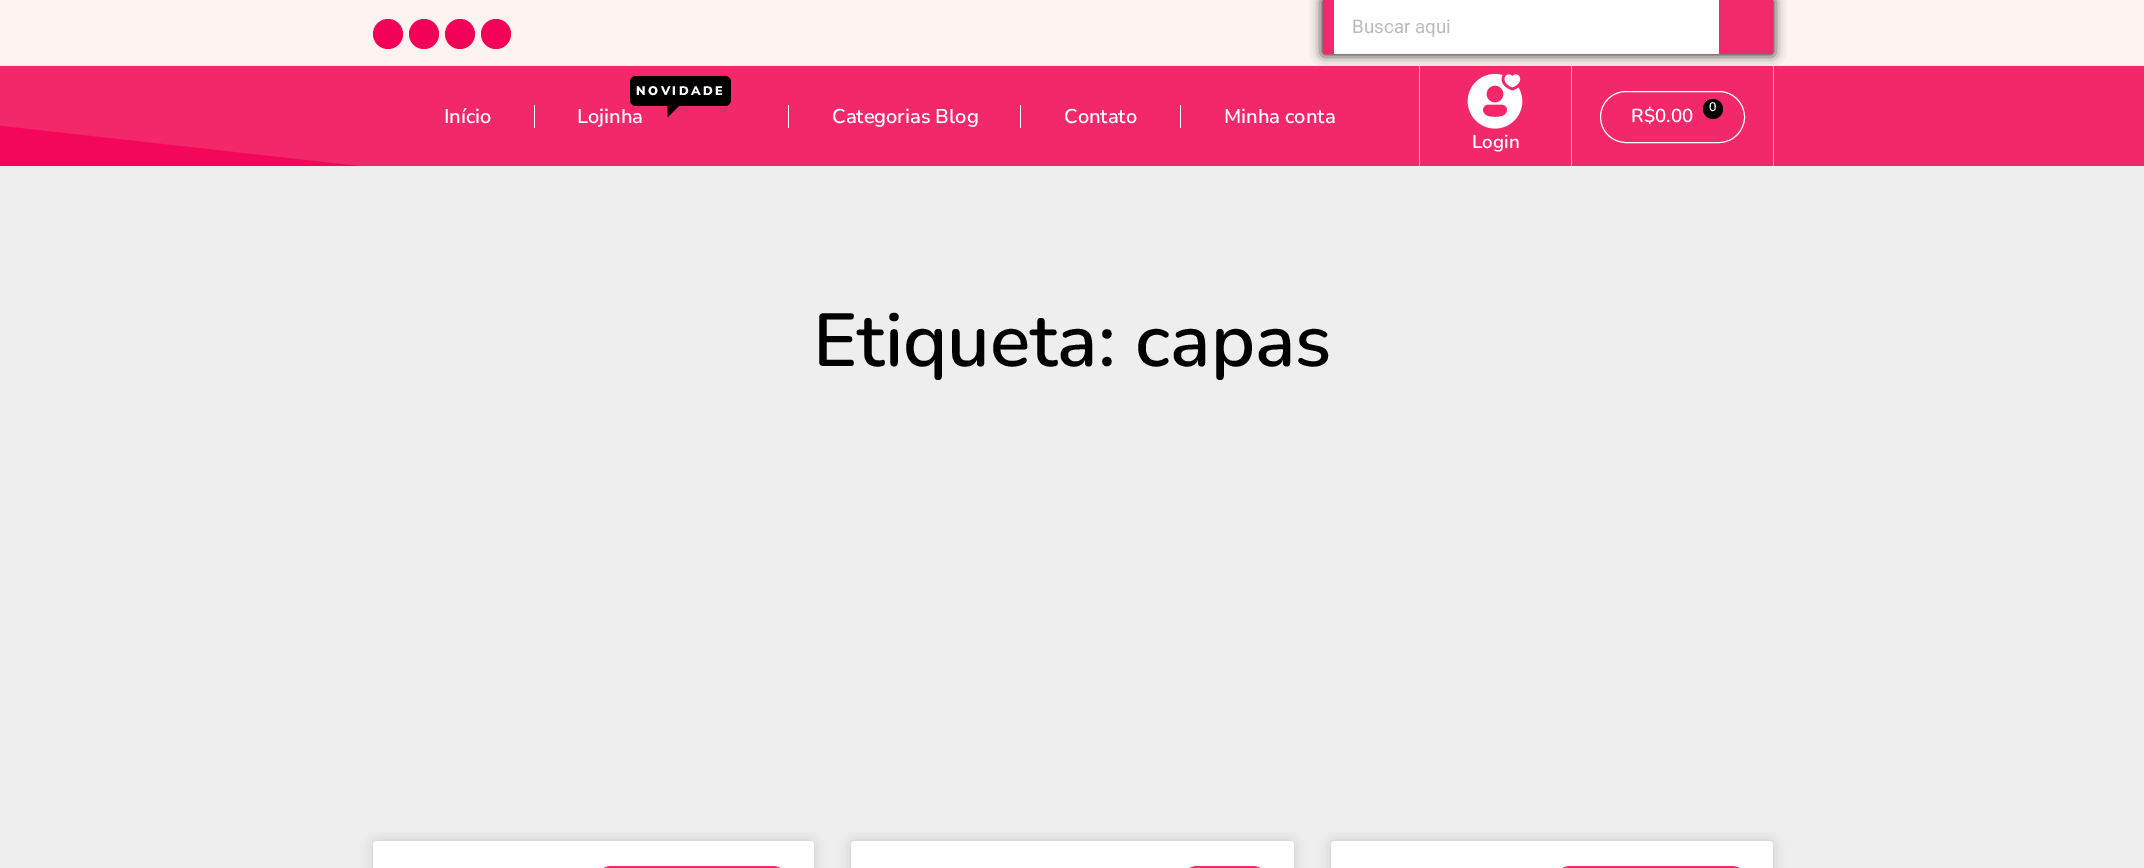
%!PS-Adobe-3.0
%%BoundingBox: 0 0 2144 868
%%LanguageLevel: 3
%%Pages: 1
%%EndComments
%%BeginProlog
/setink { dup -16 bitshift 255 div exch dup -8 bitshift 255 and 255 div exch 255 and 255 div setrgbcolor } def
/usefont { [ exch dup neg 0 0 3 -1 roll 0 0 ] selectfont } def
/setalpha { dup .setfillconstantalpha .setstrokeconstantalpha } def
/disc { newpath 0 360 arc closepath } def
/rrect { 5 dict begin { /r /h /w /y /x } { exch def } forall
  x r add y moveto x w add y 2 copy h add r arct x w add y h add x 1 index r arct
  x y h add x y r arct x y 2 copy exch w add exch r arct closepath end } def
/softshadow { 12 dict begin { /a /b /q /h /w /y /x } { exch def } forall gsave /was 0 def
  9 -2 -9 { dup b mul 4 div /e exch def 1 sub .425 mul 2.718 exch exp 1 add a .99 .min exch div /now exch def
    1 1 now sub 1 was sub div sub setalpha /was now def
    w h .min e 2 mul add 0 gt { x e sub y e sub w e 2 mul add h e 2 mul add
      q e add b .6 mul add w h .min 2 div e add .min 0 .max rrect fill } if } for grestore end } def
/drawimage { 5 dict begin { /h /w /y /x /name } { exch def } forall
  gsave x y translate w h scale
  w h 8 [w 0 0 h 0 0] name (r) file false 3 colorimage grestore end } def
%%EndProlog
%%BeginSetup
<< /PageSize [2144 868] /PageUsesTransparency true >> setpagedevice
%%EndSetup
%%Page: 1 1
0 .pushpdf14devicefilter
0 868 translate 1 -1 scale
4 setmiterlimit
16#FDF4F1 setink
0 0 2144 868 rectfill
16#F30058 setink
388 34 15 disc fill
424 34 15 disc fill
460 34 15 disc fill
496 34 15 disc fill
16#000000 setink
1323 0 450 54 0 6 1 softshadow
16#FFFFFF setink
1334 0 385 54 rectfill
16#F2296B setink
1323 0 11 54 rectfill
/Roboto-Regular 18.75 usefont
16#C0B9B9 setink
1352 33 moveto (Buscar aqui) show
16#F2296B setink
1719 0 54 54 rectfill
16#F4075B setink
0 66 2144 100 rectfill
0.18 setalpha
16#F1C0B0 setink
1777 324 moveto 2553 81 lineto 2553 65 lineto -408 65 lineto -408 80 lineto closepath fill
/NunitoSans-SemiBold 20 usefont
1 setalpha
16#FFFFFF setink
444 123 moveto (Início) show
534 105 1 23 rectfill
16#000000 setink
630 76 101 30 6 rrect fill
/NunitoSans-Black 12.5 usefont
16#FFFFFF setink
636 95 moveto 2.5 0 (NOVIDADE) ashow
16#000000 setink
667.5 105 moveto 680 105 lineto 667.5 117.5 lineto closepath fill
/NunitoSans-SemiBold 20 usefont
16#FFFFFF setink
577 123 moveto (Lojinha) show
788 105 1 23 rectfill
832 123 moveto (Categorias Blog) show
1020 105 1 23 rectfill
1064 123 moveto (Contato) show
1180 105 1 23 rectfill
1224 123 moveto (Minha conta) show
16#FAA5C1 setink
1773 66 1 100 rectfill
16#FFFFFF setink
1600.5 91.5 144 51 25.5 rrect stroke
/Nunito-SemiBold 18.75 usefont
1631 122 moveto (R$0.00) show
16#000000 setink
1713 109 10 disc fill
/Nunito-SemiBold 12.5 usefont
16#FFFFFF setink
1709 111 moveto (0) show
16#FAA5C1 setink
1571 66 1 100 rectfill
1419 66 1 100 rectfill
(img1.raw) 1467 73 56 56 drawimage
/Nunito-SemiBold 18.75 usefont
16#FFFFFF setink
1472 148 moveto (Login) show
16#EEEEEE setink
0 166 2144 702 rectfill
/Nunito-SemiBold 75 usefont
16#000000 setink
813 366 moveto (Etiqueta: capas) show
373 841 441 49 4 6 0.15 softshadow
16#FFFFFF setink
373 841 441 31 4 rrect fill
16#F2296B setink
595 866 194 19 16.5 rrect fill
16#000000 setink
851 841 443 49 4 6 0.15 softshadow
16#FFFFFF setink
851 841 443 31 4 rrect fill
16#F2296B setink
1181 866 88 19 16.5 rrect fill
16#000000 setink
1331 841 442 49 4 6 0.15 softshadow
16#FFFFFF setink
1331 841 442 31 4 rrect fill
16#F2296B setink
1554 866 194 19 16.5 rrect fill
.poppdf14devicefilter showpage
%%EOF
